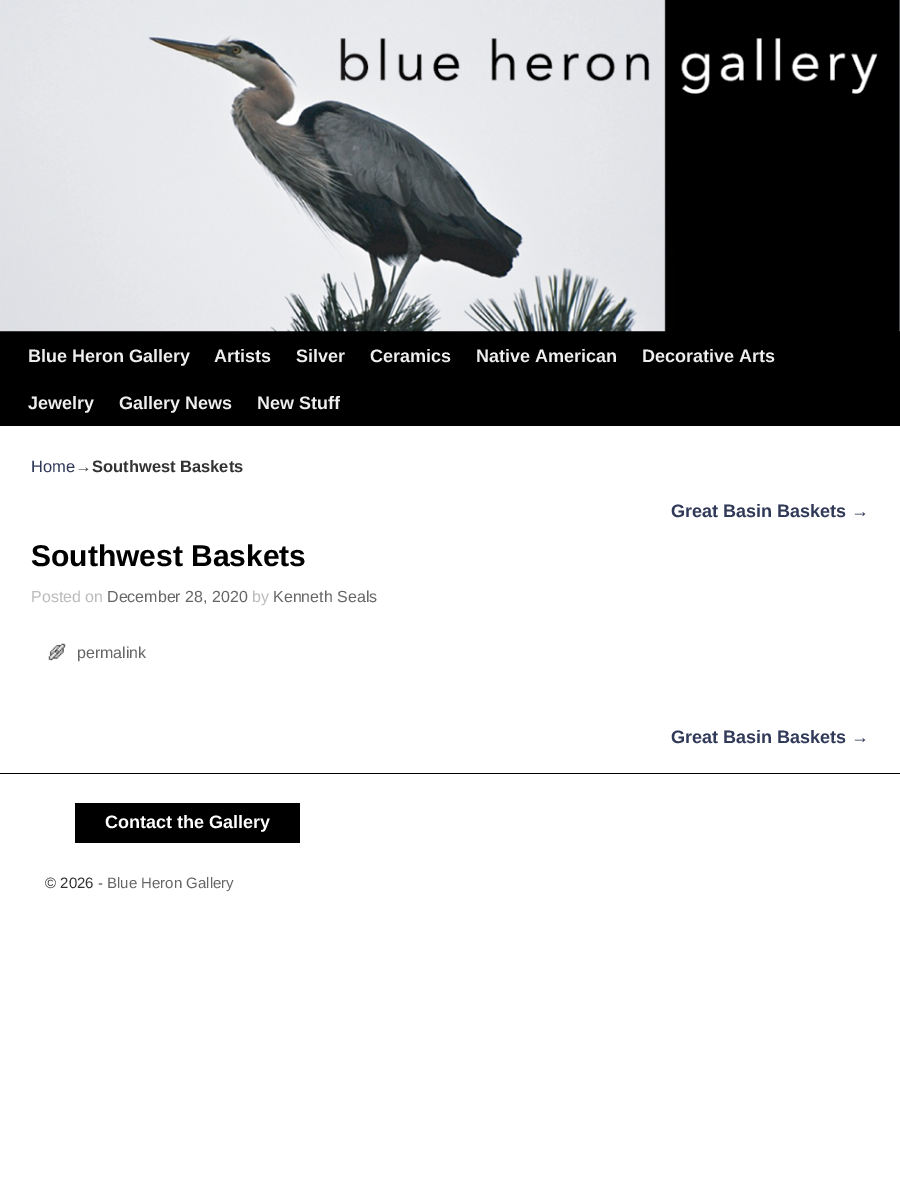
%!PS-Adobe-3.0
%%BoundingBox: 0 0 900 1198
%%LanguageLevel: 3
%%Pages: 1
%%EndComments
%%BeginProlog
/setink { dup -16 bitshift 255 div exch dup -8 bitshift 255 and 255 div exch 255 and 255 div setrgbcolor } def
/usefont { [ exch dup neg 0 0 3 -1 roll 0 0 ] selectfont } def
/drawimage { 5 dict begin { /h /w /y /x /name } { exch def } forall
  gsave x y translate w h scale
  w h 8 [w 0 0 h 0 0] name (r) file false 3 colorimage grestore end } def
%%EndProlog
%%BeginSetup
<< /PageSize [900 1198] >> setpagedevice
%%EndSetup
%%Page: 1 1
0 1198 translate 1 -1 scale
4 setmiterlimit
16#FFFFFF setink
0 0 900 1198 rectfill
16#000000 setink
0 331 900 95 rectfill
(img1.raw) 0 0 900 332 drawimage
/LiberationSans-Bold 18 usefont
16#EEEEEE setink
[
    [(Blue Heron Gallery) 28 362]
    [(Artists) 214 362]
    [(Silver) 296 362]
    [(Ceramics) 370 362]
    [(Native American) 476 362]
    [(Decorative Arts) 642 362]
    [(Jewelry) 28 409]
    [(Gallery News) 119 409]
    [(New Stuff) 257 409]
] { aload pop moveto show } forall
/LiberationSans-Regular 16.5 usefont
16#313959 setink
31 472 moveto (Home) show
16#333333 setink
75 472 moveto (→) show
/LiberationSans-Bold 16.5 usefont
92 472 moveto (Southwest Baskets) show
/LiberationSans-Bold 18 usefont
16#313959 setink
671 517 moveto (Great Basin Baskets) show
/LiberationSans-Regular 18 usefont
851 517 moveto (→) show
/LiberationSans-Bold 30 usefont
16#000000 setink
31 566 moveto (Southwest Baskets) show
/LiberationSans-Regular 16 usefont
16#BBBBBB setink
31 602 moveto (Posted on) show
16#666666 setink
107 602 moveto (December 28, 2020) show
16#BBBBBB setink
252 602 moveto (by) show
16#666666 setink
273 602 moveto (Kenneth Seals) show
(img2.raw) 48 643 18 18 drawimage
77 658 moveto (permalink) show
/LiberationSans-Bold 18 usefont
16#313959 setink
671 743 moveto (Great Basin Baskets) show
/LiberationSans-Regular 18 usefont
851 743 moveto (→) show
16#000000 setink
0 773 900 1 rectfill
75 803 225 40 rectfill
/LiberationSans-Bold 18 usefont
16#FFFFFF setink
105 828 moveto (Contact the Gallery) show
/LiberationSans-Regular 15 usefont
16#333333 setink
45 888 moveto (© 2026 -) show
16#666666 setink
107 888 moveto (Blue Heron Gallery) show
showpage
%%EOF
